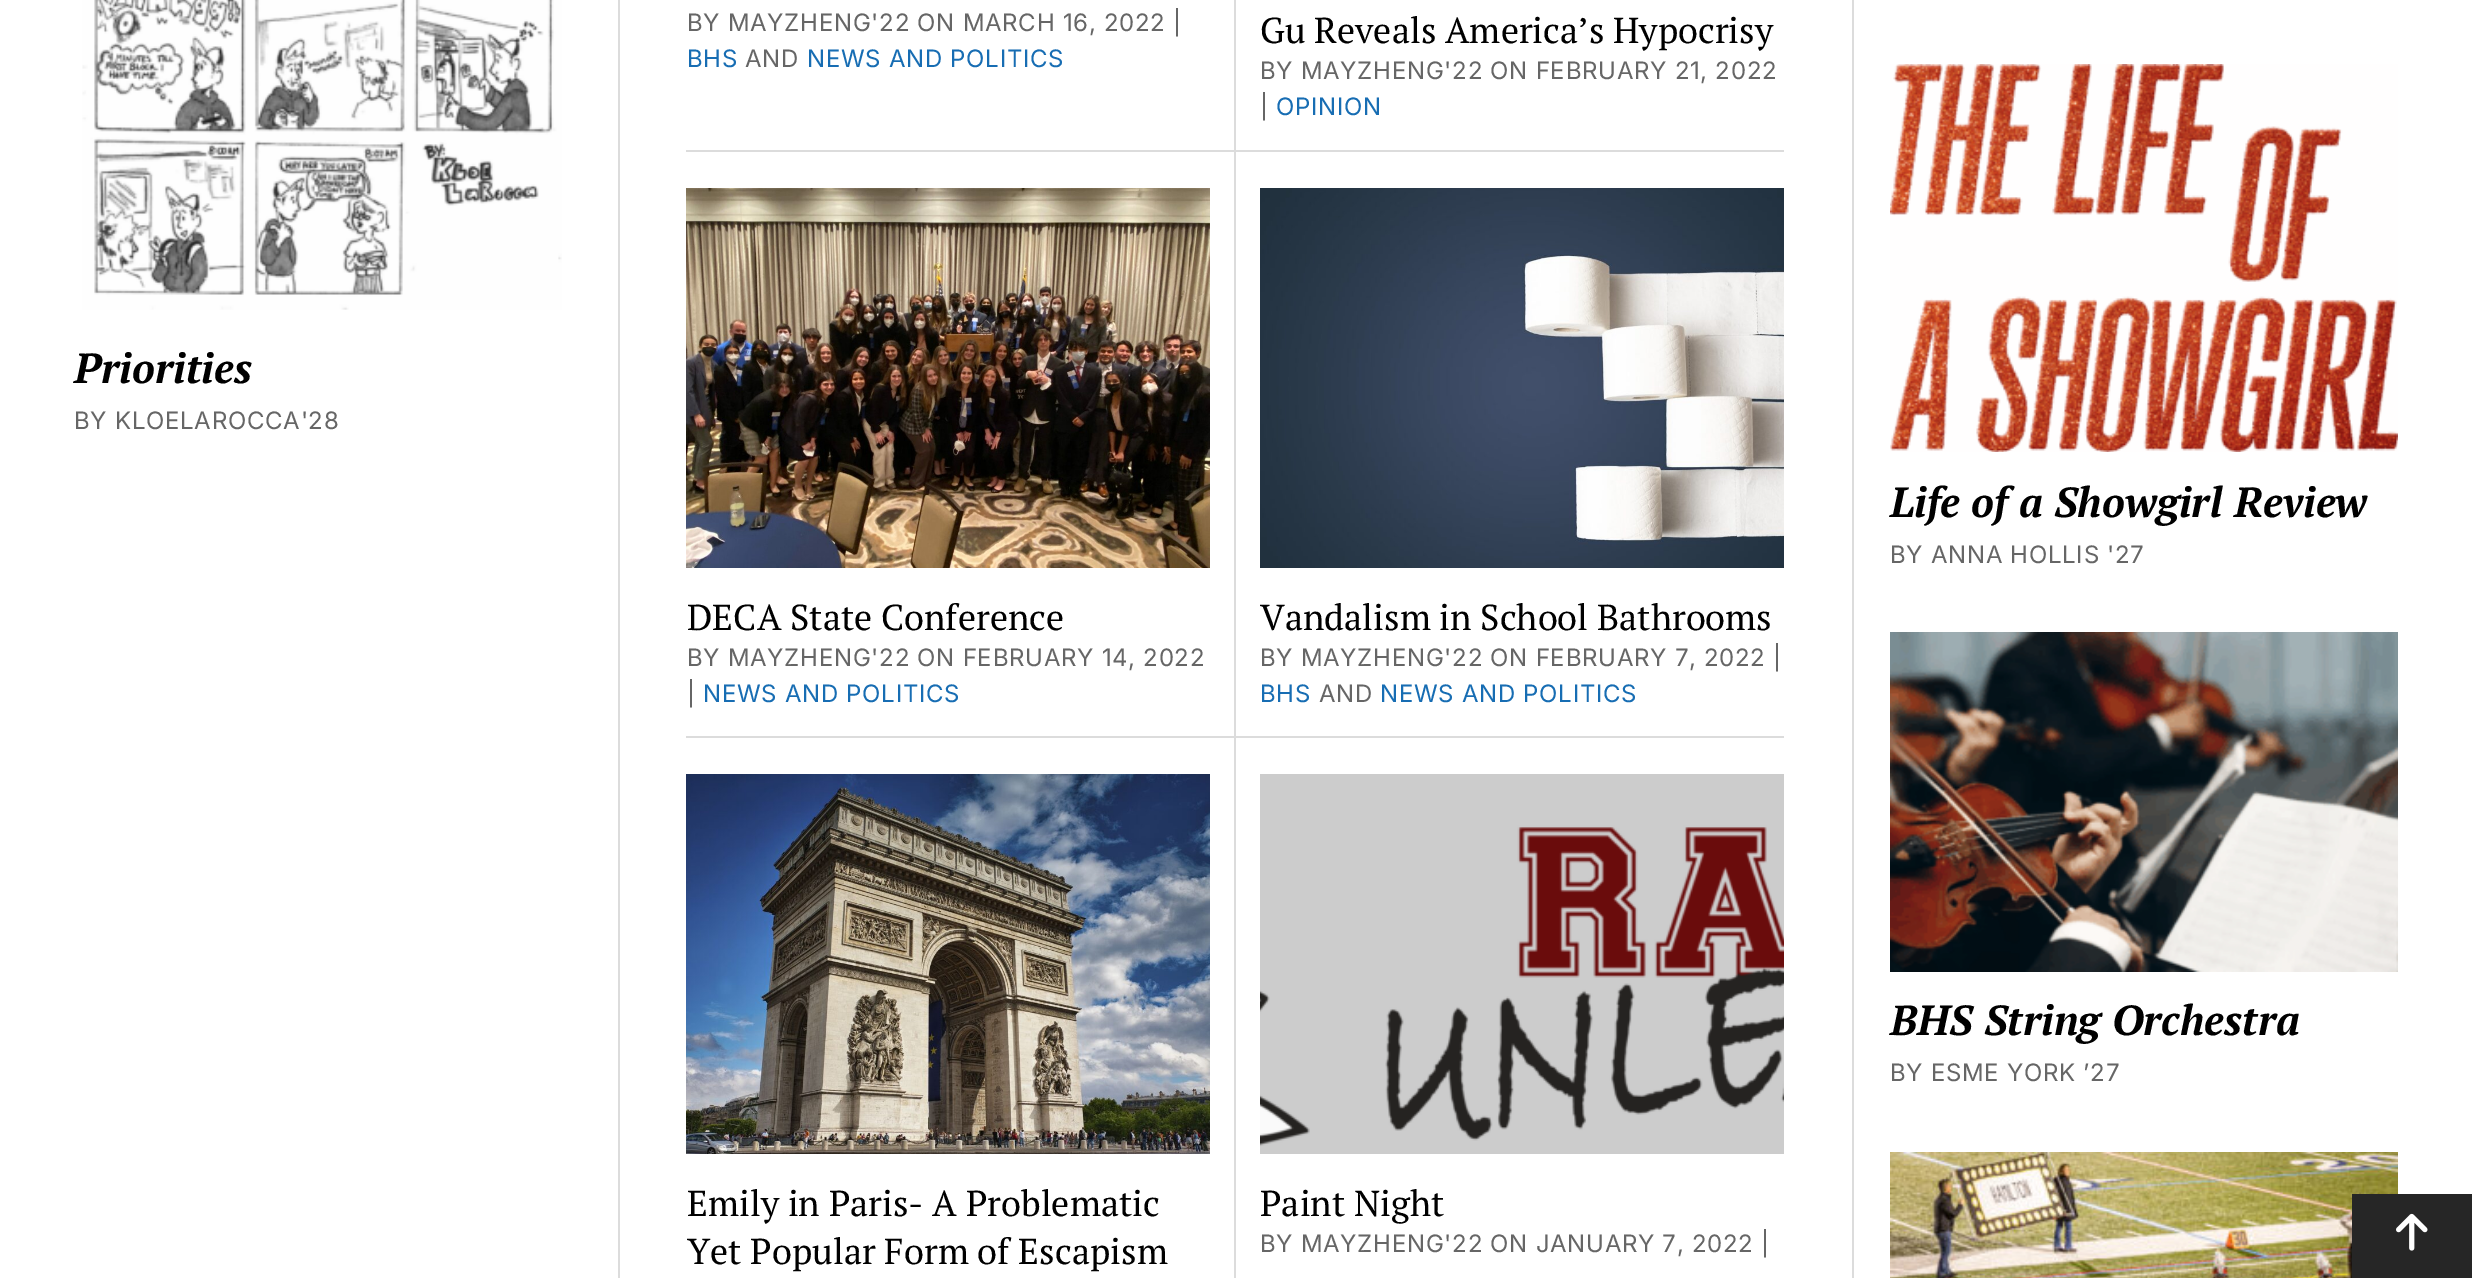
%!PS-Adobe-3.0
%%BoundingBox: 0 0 2472 1278
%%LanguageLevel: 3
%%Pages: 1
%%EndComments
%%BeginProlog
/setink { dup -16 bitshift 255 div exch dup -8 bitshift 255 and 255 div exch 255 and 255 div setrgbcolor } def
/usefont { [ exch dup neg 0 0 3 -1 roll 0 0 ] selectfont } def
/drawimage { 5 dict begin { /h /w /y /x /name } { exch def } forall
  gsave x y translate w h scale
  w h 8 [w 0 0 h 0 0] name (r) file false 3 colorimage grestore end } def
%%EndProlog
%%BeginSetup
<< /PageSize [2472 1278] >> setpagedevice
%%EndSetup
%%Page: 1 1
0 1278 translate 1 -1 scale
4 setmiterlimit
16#FFFFFF setink
0 0 2472 1278 rectfill
16#DCDCDC setink
618 0 2 1278 rectfill
1852 0 2 1278 rectfill
(img1.raw) 82 0 480 310 drawimage
/PTSerif-BoldItalic 42 usefont
16#000000 setink
74 383 moveto (Priorities) show
/Inter-Regular 24 usefont
16#666666 setink
74 429 moveto 0.7 0 (BY KLOELAROCCA'28) ashow
687 31 moveto 0.7 0 (BY MAYZHENG'22 ON MARCH 16, 2022 |) ashow
16#176DB3 setink
687 67 moveto 0.7 0 (BHS) ashow
16#666666 setink
745 67 moveto 0.7 0 (AND) ashow
16#176DB3 setink
807 67 moveto 0.7 0 (NEWS AND POLITICS) ashow
16#DCDCDC setink
1234 0 2 150 rectfill
/PTSerif-Regular 36 usefont
16#000000 setink
1260 43 moveto (Gu Reveals America’s Hypocrisy) show
/Inter-Regular 24 usefont
16#666666 setink
1260 79 moveto 0.7 0 (BY MAYZHENG'22 ON FEBRUARY 21, 2022) ashow
1260 115 moveto 0.7 0 (|) ashow
16#176DB3 setink
1276 115 moveto 0.7 0 (OPINION) ashow
16#DCDCDC setink
686 150 550 2 rectfill
1234 150 2 586 rectfill
(img2.raw) 686 188 524 380 drawimage
/PTSerif-Regular 36 usefont
16#000000 setink
687 630 moveto (DECA State Conference) show
/Inter-Regular 24 usefont
16#666666 setink
687 666 moveto 0.7 0 (BY MAYZHENG'22 ON FEBRUARY 14, 2022) ashow
687 702 moveto 0.7 0 (|) ashow
16#176DB3 setink
703 702 moveto 0.7 0 (NEWS AND POLITICS) ashow
16#DCDCDC setink
1234 150 550 2 rectfill
(img3.raw) 1260 188 524 380 drawimage
/PTSerif-Regular 36 usefont
16#000000 setink
1260 630 moveto (Vandalism in School Bathrooms) show
/Inter-Regular 24 usefont
16#666666 setink
1260 666 moveto 0.7 0 (BY MAYZHENG'22 ON FEBRUARY 7, 2022 |) ashow
16#176DB3 setink
1260 702 moveto 0.7 0 (BHS) ashow
16#666666 setink
1319 702 moveto 0.7 0 (AND) ashow
16#176DB3 setink
1380 702 moveto 0.7 0 (NEWS AND POLITICS) ashow
16#DCDCDC setink
686 736 550 2 rectfill
1234 736 2 542 rectfill
(img4.raw) 686 774 524 380 drawimage
/PTSerif-Regular 36 usefont
16#000000 setink
687 1216 moveto (Emily in Paris- A Problematic) show
687 1264 moveto (Yet Popular Form of Escapism) show
16#DCDCDC setink
1234 736 550 2 rectfill
(img5.raw) 1260 774 524 380 drawimage
16#000000 setink
1260 1216 moveto (Paint Night) show
/Inter-Regular 24 usefont
16#666666 setink
1260 1252 moveto 0.7 0 (BY MAYZHENG'22 ON JANUARY 7, 2022 |) ashow
(img6.raw) 1890 64 508 388 drawimage
/PTSerif-BoldItalic 42 usefont
16#000000 setink
1890 517 moveto (Life of a Showgirl Review) show
/Inter-Regular 24 usefont
16#666666 setink
1890 563 moveto 0.7 0 (BY ANNA HOLLIS '27) ashow
(img7.raw) 1890 632 508 340 drawimage
/PTSerif-BoldItalic 42 usefont
16#000000 setink
1890 1035 moveto (BHS String Orchestra) show
/Inter-Regular 24 usefont
16#666666 setink
1890 1081 moveto 0.7 0 (BY ESME YORK ’27) ashow
(img8.raw) 1890 1152 508 126 drawimage
16#262626 setink
2352 1194 120 84 rectfill
(img9.raw) 2396 1213 32 38 drawimage
showpage
%%EOF
